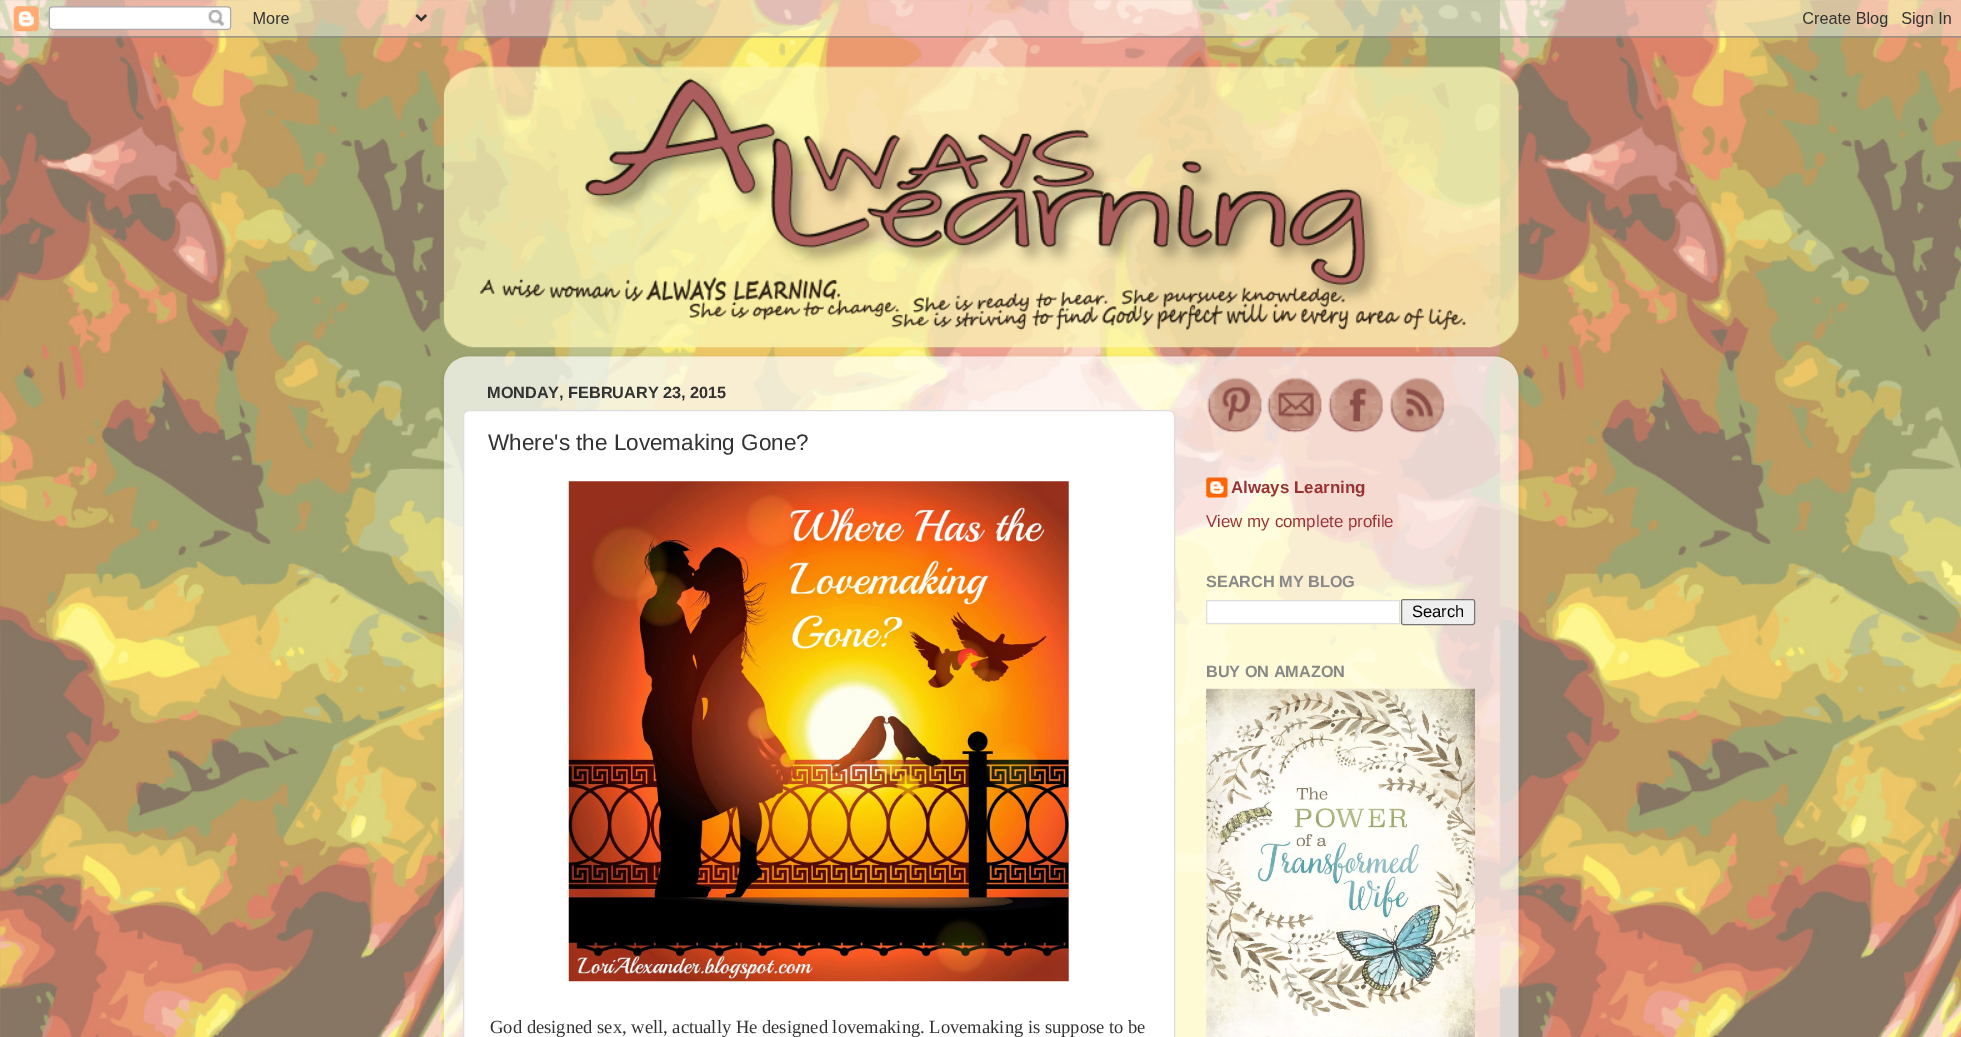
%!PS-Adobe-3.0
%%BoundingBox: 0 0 1961 1037
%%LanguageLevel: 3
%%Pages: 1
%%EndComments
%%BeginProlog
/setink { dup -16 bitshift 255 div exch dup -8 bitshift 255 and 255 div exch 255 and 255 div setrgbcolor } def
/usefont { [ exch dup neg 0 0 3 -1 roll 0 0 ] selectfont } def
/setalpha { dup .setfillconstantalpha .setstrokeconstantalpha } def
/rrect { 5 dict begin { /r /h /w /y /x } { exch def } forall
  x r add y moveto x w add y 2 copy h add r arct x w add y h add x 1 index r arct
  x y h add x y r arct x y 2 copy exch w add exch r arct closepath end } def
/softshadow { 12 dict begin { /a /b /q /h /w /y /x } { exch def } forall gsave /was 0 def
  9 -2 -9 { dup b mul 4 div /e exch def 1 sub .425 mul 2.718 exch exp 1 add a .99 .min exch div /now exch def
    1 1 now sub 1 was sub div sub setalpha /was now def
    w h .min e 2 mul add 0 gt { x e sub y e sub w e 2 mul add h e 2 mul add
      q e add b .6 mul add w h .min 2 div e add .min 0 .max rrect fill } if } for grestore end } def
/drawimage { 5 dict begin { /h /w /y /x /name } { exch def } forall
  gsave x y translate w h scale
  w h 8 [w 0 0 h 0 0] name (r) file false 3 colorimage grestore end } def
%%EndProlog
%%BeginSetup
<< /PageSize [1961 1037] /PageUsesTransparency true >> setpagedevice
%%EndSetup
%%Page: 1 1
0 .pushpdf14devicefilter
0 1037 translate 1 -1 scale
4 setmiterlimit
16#FFFFFF setink
0 0 1961 1037 rectfill
(img1.raw) 0 0 1961 1037 drawimage
(img2.raw) 0 0 1961 38 drawimage
(img3.raw) 443 66 1076 282 drawimage
gsave
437 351 moveto 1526 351 lineto 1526 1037 lineto 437 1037 lineto closepath 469 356 moveto 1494 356 lineto 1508 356 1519 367 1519 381 curveto 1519 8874 lineto 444 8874 lineto 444 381 lineto 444 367 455 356 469 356 curveto closepath eoclip newpath
16#000000 setink
444 358 1075 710 25 2 0.15 softshadow
grestore
(img4.raw) 443 356 1076 681 drawimage
/LiberationSans-Bold 16.25 usefont
16#333333 setink
487 398 moveto (MONDAY, FEBRUARY 23, 2015) show
16#FFFFFF setink
463.5 410.5 711 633 5.5 rrect gsave fill grestore
16#DDDDDD setink
stroke
/LiberationSans-Regular 22.5 usefont
16#333333 setink
488 450 moveto (Where's the Lovemaking Gone?) show
(img5.raw) 568 481 501 501 drawimage
/LiberationSerif-Regular 18.55 usefont
490 1033 moveto (God designed sex, well, actually He designed lovemaking. Lovemaking is suppose to be) show
(img6.raw) 1207 377 55 56 drawimage
(img7.raw) 1267 377 55 56 drawimage
(img8.raw) 1328 377 56 56 drawimage
(img9.raw) 1389 377 56 56 drawimage
(img10.raw) 1206 477 22 21 drawimage
/LiberationSans-Bold 16.9 usefont
16#993333 setink
1231 493 moveto (Always Learning) show
/LiberationSans-Regular 16.9 usefont
1206 527 moveto (View my complete profile) show
/LiberationSans-Bold 16.25 usefont
16#888888 setink
1206 587 moveto (SEARCH MY BLOG) show
16#FFFFFF setink
1206.5 600.5 moveto 1399.5 600.5 lineto 1399.5 623.5 lineto 1206.5 623.5 lineto closepath gsave fill grestore
16#DDDDDD setink
stroke
16#EFEFEF setink
1401.5 599.5 73 25 2 rrect gsave fill grestore
16#767676 setink
stroke
/LiberationSans-Regular 16.5 usefont
16#000000 setink
1412 617 moveto (Search) show
/LiberationSans-Bold 16.25 usefont
16#888888 setink
1206 677 moveto (BUY ON AMAZON) show
(img11.raw) 1206 688 269 349 drawimage
.poppdf14devicefilter showpage
%%EOF
